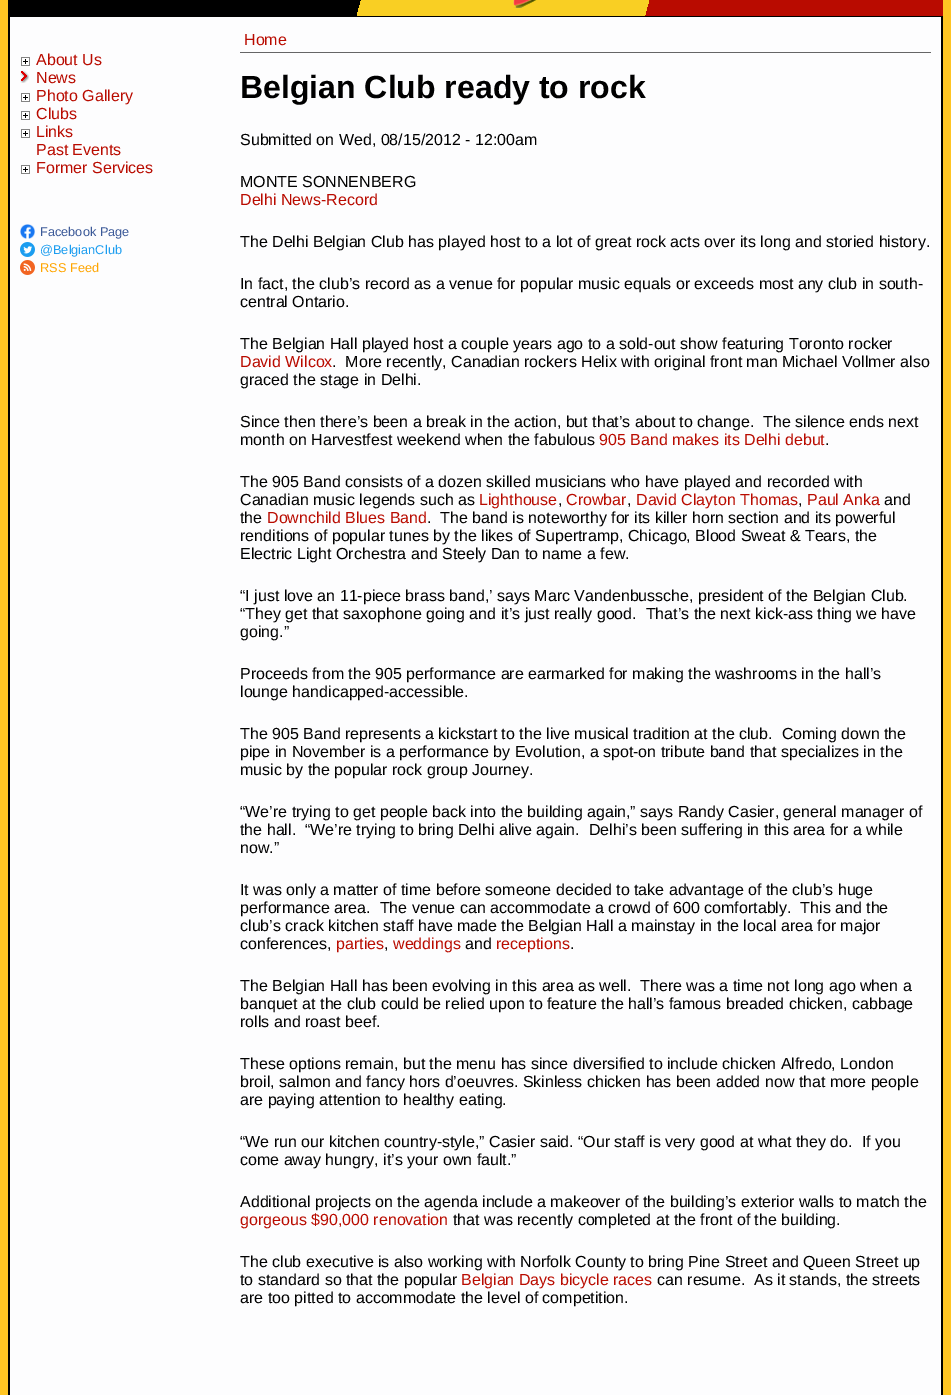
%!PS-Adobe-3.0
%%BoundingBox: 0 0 951 1395
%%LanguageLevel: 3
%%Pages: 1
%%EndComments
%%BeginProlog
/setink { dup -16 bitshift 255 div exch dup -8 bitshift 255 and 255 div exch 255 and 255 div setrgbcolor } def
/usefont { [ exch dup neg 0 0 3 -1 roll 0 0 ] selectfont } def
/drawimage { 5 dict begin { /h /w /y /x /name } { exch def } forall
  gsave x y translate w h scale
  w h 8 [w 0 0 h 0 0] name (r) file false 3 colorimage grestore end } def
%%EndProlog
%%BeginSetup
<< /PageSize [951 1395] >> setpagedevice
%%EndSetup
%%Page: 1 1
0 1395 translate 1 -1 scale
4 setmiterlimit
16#FFC523 setink
0 0 951 1395 rectfill
16#000000 setink
8 16 935 1 rectfill
gsave 8 0 moveto 403 0 lineto 403 16 lineto 8 16 lineto closepath clip newpath
<< /ShadingType 2 /ColorSpace /DeviceRGB /Coords [6.5 -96 405 10] /Extend [true true] /Function << /FunctionType 3 /Domain [0 1] /Functions [<< /FunctionType 2 /Domain [0 1] /C0 [0 0 0] /C1 [0 0 0] /N 1 >> << /FunctionType 2 /Domain [0 1] /C0 [0.976 0.812 0.137] /C1 [0.976 0.812 0.137] /N 1 >>] /Bounds [0.89] /Encode [0 1 0 1] >> >> shfill grestore
16#F9CF23 setink
403 0 225 16 rectfill
(img1.raw) 513 0 24 8 drawimage
gsave 628 0 moveto 943 0 lineto 943 16 lineto 628 16 lineto closepath clip newpath
<< /ShadingType 2 /ColorSpace /DeviceRGB /Coords [624 -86 947 0.3] /Extend [true true] /Function << /FunctionType 3 /Domain [0 1] /Functions [<< /FunctionType 2 /Domain [0 1] /C0 [0.976 0.812 0.137] /C1 [0.976 0.812 0.137] /N 1 >> << /FunctionType 2 /Domain [0 1] /C0 [0.725 0.043 0] /C1 [0.725 0.043 0] /N 1 >>] /Bounds [0.14] /Encode [0 1 0 1] >> >> shfill grestore
[
    [10 17 931 1378 16#FDFDFE]
    [941 17 2 1378 16#000000]
    [8 17 2 1378 16#000000]
    [240 52 691 1 16#666666]
] { aload pop setink rectfill } forall
/LiberationSans-Regular 16 usefont
16#B90B00 setink
244 45 moveto (Home) show
(img2.raw) 21 57 9 9 drawimage
36 65 moveto (About Us) show
(img3.raw) 20 70 9 13 drawimage
36 83 moveto (News) show
(img2.raw) 21 93 9 9 drawimage
36 101 moveto (Photo Gallery) show
(img2.raw) 21 111 9 9 drawimage
36 119 moveto (Clubs) show
(img2.raw) 21 129 9 9 drawimage
36 137 moveto (Links) show
36 155 moveto (Past Events) show
(img2.raw) 21 165 9 9 drawimage
36 173 moveto (Former Services) show
(img4.raw) 20 224 15 15 drawimage
/LiberationSans-Regular 12.75 usefont
16#3B5998 setink
40 236 moveto (Facebook Page) show
(img5.raw) 20 242 15 15 drawimage
16#1B9DF0 setink
40 254 moveto (@BelgianClub) show
(img6.raw) 20 260 15 15 drawimage
16#FFA500 setink
40 272 moveto (RSS Feed) show
/LiberationSans-Bold 32 usefont
16#000000 setink
240 98 moveto (Belgian Club ready to rock) show
/LiberationSans-Regular 16 usefont
240 145 moveto (Submitted on Wed, 08/15/2012 - 12:00am) show
240 187 moveto (MONTE SONNENBERG) show
16#B90B00 setink
240 205 moveto (Delhi News-Record) show
16#000000 setink
[
    [(The Delhi Belgian Club has played host to a lot of great rock acts over its long and storied history.) 240 247]
    [(In fact, the club’s record as a venue for popular music equals or exceeds most any club in south-) 240 289]
    [(central Ontario.) 240 307]
    [(The Belgian Hall played host a couple years ago to a sold-out show featuring Toronto rocker) 240 349]
] { aload pop moveto show } forall
16#B90B00 setink
240 367 moveto (David Wilcox) show
16#000000 setink
[
    [(.  More recently, Canadian rockers Helix with original front man Michael Vollmer also) 332 367]
    [(graced the stage in Delhi.) 240 385]
    [(Since then there’s been a break in the action, but that’s about to change.  The silence ends next) 240 427]
    [(month on Harvestfest weekend when the fabulous) 240 445]
] { aload pop moveto show } forall
16#B90B00 setink
599 445 moveto (905 Band makes its Delhi debut) show
16#000000 setink
[
    [(.) 825 445]
    [(The 905 Band consists of a dozen skilled musicians who have played and recorded with) 240 487]
    [(Canadian music legends such as) 240 505]
] { aload pop moveto show } forall
16#B90B00 setink
479 505 moveto (Lighthouse) show
16#000000 setink
558 505 moveto (,) show
16#B90B00 setink
566 505 moveto (Crowbar) show
16#000000 setink
627 505 moveto (,) show
16#B90B00 setink
636 505 moveto (David Clayton Thomas) show
16#000000 setink
798 505 moveto (,) show
16#B90B00 setink
807 505 moveto (Paul Anka) show
16#000000 setink
884 505 moveto (and) show
240 523 moveto (the) show
16#B90B00 setink
267 523 moveto (Downchild Blues Band) show
16#000000 setink
[
    [(.  The band is noteworthy for its killer horn section and its powerful) 427 523]
    [(renditions of popular tunes by the likes of Supertramp, Chicago, Blood Sweat & Tears, the) 240 541]
    [(Electric Light Orchestra and Steely Dan to name a few.) 240 559]
    [(“I just love an 11-piece brass band,’ says Marc Vandenbussche, president of the Belgian Club.) 240 601]
    [(“They get that saxophone going and it’s just really good.  That’s the next kick-ass thing we have) 240 619]
    [(going.”) 240 637]
    [(Proceeds from the 905 performance are earmarked for making the washrooms in the hall’s) 240 679]
    [(lounge handicapped-accessible.) 240 697]
    [(The 905 Band represents a kickstart to the live musical tradition at the club.  Coming down the) 240 739]
    [(pipe in November is a performance by Evolution, a spot-on tribute band that specializes in the) 240 757]
    [(music by the popular rock group Journey.) 240 775]
    [(“We’re trying to get people back into the building again,” says Randy Casier, general manager of) 240 817]
    [(the hall.  “We’re trying to bring Delhi alive again.  Delhi’s been suffering in this area for a while) 240 835]
    [(now.”) 240 853]
    [(It was only a matter of time before someone decided to take advantage of the club’s huge) 240 895]
    [(performance area.  The venue can accommodate a crowd of 600 comfortably.  This and the) 240 913]
    [(club’s crack kitchen staff have made the Belgian Hall a mainstay in the local area for major) 240 931]
    [(conferences,) 240 949]
] { aload pop moveto show } forall
16#B90B00 setink
336 949 moveto (parties) show
16#000000 setink
384 949 moveto (,) show
16#B90B00 setink
393 949 moveto (weddings) show
16#000000 setink
465 949 moveto (and) show
16#B90B00 setink
496 949 moveto (receptions) show
16#000000 setink
[
    [(.) 570 949]
    [(The Belgian Hall has been evolving in this area as well.  There was a time not long ago when a) 240 991]
    [(banquet at the club could be relied upon to feature the hall’s famous breaded chicken, cabbage) 240 1009]
    [(rolls and roast beef.) 240 1027]
    [(These options remain, but the menu has since diversified to include chicken Alfredo, London) 240 1069]
    [(broil, salmon and fancy hors d’oeuvres. Skinless chicken has been added now that more people) 240 1087]
    [(are paying attention to healthy eating.) 240 1105]
    [(“We run our kitchen country-style,” Casier said. “Our staff is very good at what they do.  If you) 240 1147]
    [(come away hungry, it’s your own fault.”) 240 1165]
    [(Additional projects on the agenda include a makeover of the building’s exterior walls to match the) 240 1207]
] { aload pop moveto show } forall
16#B90B00 setink
240 1225 moveto (gorgeous $90,000 renovation) show
16#000000 setink
[
    [(that was recently completed at the front of the building.) 453 1225]
    [(The club executive is also working with Norfolk County to bring Pine Street and Queen Street up) 240 1267]
    [(to standard so that the popular) 240 1285]
] { aload pop moveto show } forall
16#B90B00 setink
461 1285 moveto (Belgian Days bicycle races) show
16#000000 setink
657 1285 moveto (can resume.  As it stands, the streets) show
240 1303 moveto (are too pitted to accommodate the level of competition.) show
showpage
%%EOF
